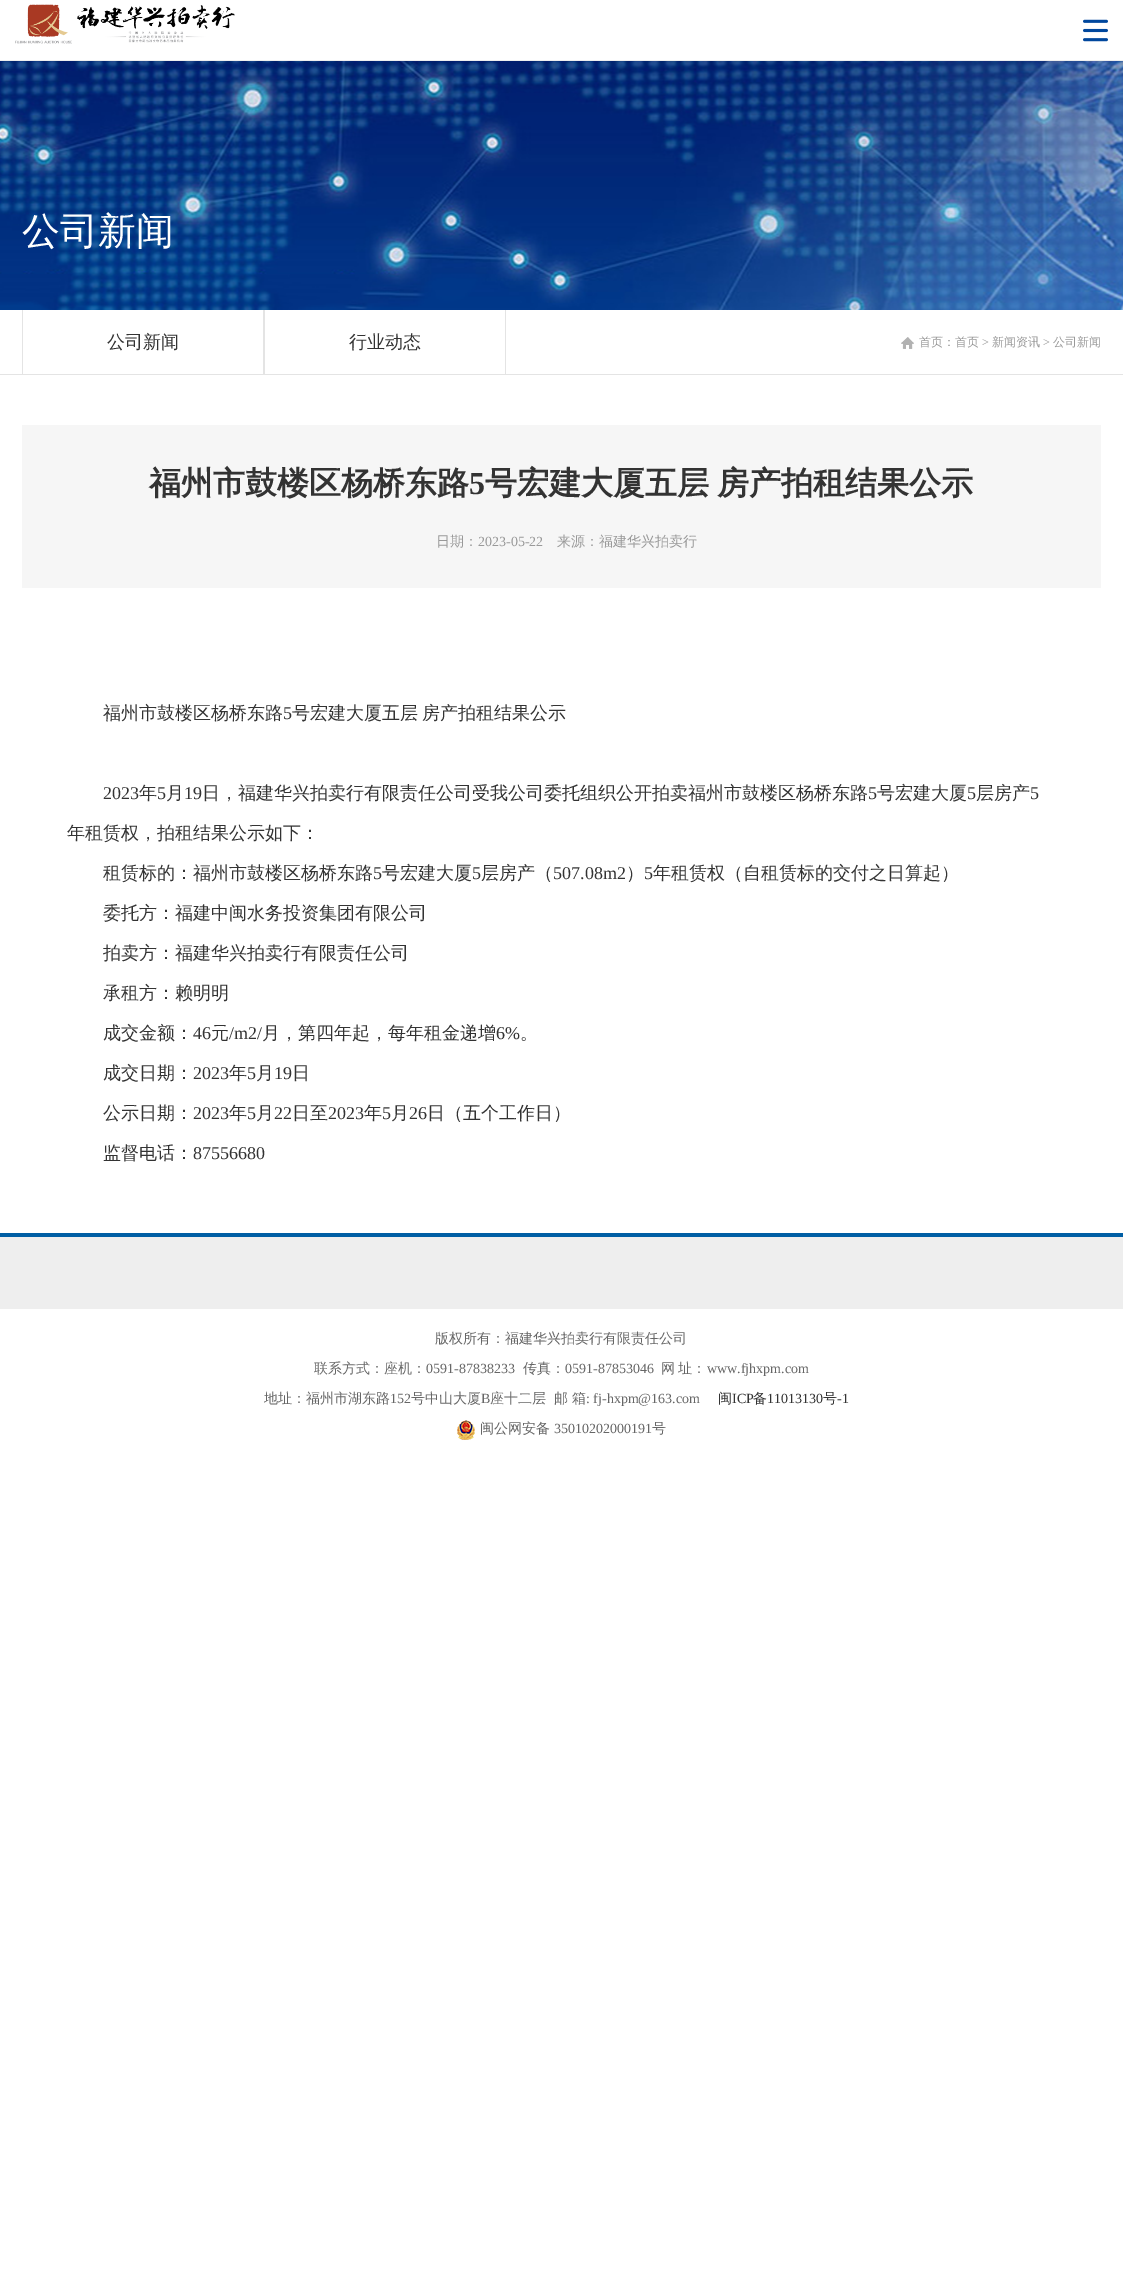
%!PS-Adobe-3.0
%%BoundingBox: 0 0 1123 2283
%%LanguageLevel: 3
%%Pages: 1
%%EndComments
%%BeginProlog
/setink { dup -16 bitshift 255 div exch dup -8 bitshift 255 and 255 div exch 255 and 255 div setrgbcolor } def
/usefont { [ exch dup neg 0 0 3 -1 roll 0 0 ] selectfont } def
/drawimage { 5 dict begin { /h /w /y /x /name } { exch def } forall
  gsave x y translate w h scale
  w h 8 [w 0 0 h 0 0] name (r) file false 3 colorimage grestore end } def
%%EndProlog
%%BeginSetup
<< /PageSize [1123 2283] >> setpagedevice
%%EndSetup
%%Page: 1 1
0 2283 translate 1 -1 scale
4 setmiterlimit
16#FFFFFF setink
0 0 1123 2283 rectfill
16#EEEEEE setink
0 60 1123 1 rectfill
(img1.raw) 15 4 220 40 drawimage
(img2.raw) 1083 19 25 23 drawimage
(img3.raw) 0 61 1123 249 drawimage
/WenQuanYiZenHei-Medium 38 usefont
16#FFFFFF setink
22 244 moveto (公司新闻) show
[
    [0 374 1123 1 16#E4E4E4]
    [263 310 2 64 16#E4E4E4]
    [22 310 1 64 16#E4E4E4]
] { aload pop setink rectfill } forall
/WenQuanYiZenHei-Medium 18 usefont
16#333333 setink
107 348 moveto (公司新闻) show
16#E4E4E4 setink
505 310 1 64 rectfill
16#333333 setink
349 348 moveto (行业动态) show
(img4.raw) 901 337 13 12 drawimage
/WenQuanYiZenHei-Medium 12 usefont
16#999999 setink
919 346 moveto (首页：首页) show
/LiberationSerif-Regular 12 usefont
982 346 moveto (>) show
/WenQuanYiZenHei-Medium 12 usefont
992 346 moveto (新闻资讯) show
/LiberationSerif-Regular 12 usefont
1043 346 moveto (>) show
/WenQuanYiZenHei-Medium 12 usefont
1053 346 moveto (公司新闻) show
16#F6F6F6 setink
22 425 1079 163 rectfill
/WenQuanYiZenHei-Bold 32 usefont
16#333333 setink
149 494 moveto (福州市鼓楼区杨桥东路) show
/LiberationSerif-Bold 32 usefont
469 494 moveto (5) show
/WenQuanYiZenHei-Bold 32 usefont
485 494 moveto -2 0 32 (号宏建大厦五层 房产拍租结果公示) widthshow
/WenQuanYiZenHei-Medium 14 usefont
16#999999 setink
436 546 moveto (日期：) show
/LiberationSerif-Regular 14 usefont
478 546 moveto (2023-05-22) show
/WenQuanYiZenHei-Medium 14 usefont
557 546 moveto (来源：福建华兴拍卖行) show
/WenQuanYiZenHei-Medium 18 usefont
16#333333 setink
103 719 moveto (福州市鼓楼区杨桥东路) show
/LiberationSerif-Regular 18 usefont
283 719 moveto (5) show
/WenQuanYiZenHei-Medium 18 usefont
292 719 moveto -1 0 32 (号宏建大厦五层 房产拍租结果公示) widthshow
/LiberationSerif-Regular 18 usefont
103 799 moveto (2023) show
/WenQuanYiZenHei-Medium 18 usefont
139 799 moveto (年) show
/LiberationSerif-Regular 18 usefont
157 799 moveto (5) show
/WenQuanYiZenHei-Medium 18 usefont
166 799 moveto (月) show
/LiberationSerif-Regular 18 usefont
184 799 moveto (19) show
/WenQuanYiZenHei-Medium 18 usefont
202 799 moveto (日，福建华兴拍卖行有限责任公司受我公司委托组织公开拍卖福州市鼓楼区杨桥东路) show
/LiberationSerif-Regular 18 usefont
868 799 moveto (5) show
/WenQuanYiZenHei-Medium 18 usefont
877 799 moveto (号宏建大厦) show
/LiberationSerif-Regular 18 usefont
967 799 moveto (5) show
/WenQuanYiZenHei-Medium 18 usefont
976 799 moveto (层房产) show
/LiberationSerif-Regular 18 usefont
1030 799 moveto (5) show
/WenQuanYiZenHei-Medium 18 usefont
67 839 moveto (年租赁权，拍租结果公示如下：) show
103 879 moveto (租赁标的：福州市鼓楼区杨桥东路) show
/LiberationSerif-Regular 18 usefont
373 879 moveto (5) show
/WenQuanYiZenHei-Medium 18 usefont
382 879 moveto (号宏建大厦) show
/LiberationSerif-Regular 18 usefont
472 879 moveto (5) show
/WenQuanYiZenHei-Medium 18 usefont
481 879 moveto (层房产（) show
/LiberationSerif-Regular 18 usefont
553 879 moveto (507.08m2) show
/WenQuanYiZenHei-Medium 18 usefont
626 879 moveto (）) show
/LiberationSerif-Regular 18 usefont
644 879 moveto (5) show
/WenQuanYiZenHei-Medium 18 usefont
[
    [(年租赁权（自租赁标的交付之日算起）) 653 879]
    [(委托方：福建中闽水务投资集团有限公司) 103 919]
    [(拍卖方：福建华兴拍卖行有限责任公司) 103 959]
    [(承租方：赖明明) 103 999]
    [(成交金额：) 103 1039]
] { aload pop moveto show } forall
/LiberationSerif-Regular 18 usefont
193 1039 moveto (46) show
/WenQuanYiZenHei-Medium 18 usefont
211 1039 moveto (元) show
/LiberationSerif-Regular 18 usefont
229 1039 moveto (/m2/) show
/WenQuanYiZenHei-Medium 18 usefont
262 1039 moveto (月，第四年起，每年租金递增) show
/LiberationSerif-Regular 18 usefont
496 1039 moveto (6%) show
/WenQuanYiZenHei-Medium 18 usefont
520 1039 moveto (。) show
103 1079 moveto (成交日期：) show
/LiberationSerif-Regular 18 usefont
193 1079 moveto (2023) show
/WenQuanYiZenHei-Medium 18 usefont
229 1079 moveto (年) show
/LiberationSerif-Regular 18 usefont
247 1079 moveto (5) show
/WenQuanYiZenHei-Medium 18 usefont
256 1079 moveto (月) show
/LiberationSerif-Regular 18 usefont
274 1079 moveto (19) show
/WenQuanYiZenHei-Medium 18 usefont
292 1079 moveto (日) show
103 1119 moveto (公示日期：) show
/LiberationSerif-Regular 18 usefont
193 1119 moveto (2023) show
/WenQuanYiZenHei-Medium 18 usefont
229 1119 moveto (年) show
/LiberationSerif-Regular 18 usefont
247 1119 moveto (5) show
/WenQuanYiZenHei-Medium 18 usefont
256 1119 moveto (月) show
/LiberationSerif-Regular 18 usefont
274 1119 moveto (22) show
/WenQuanYiZenHei-Medium 18 usefont
292 1119 moveto (日至) show
/LiberationSerif-Regular 18 usefont
328 1119 moveto (2023) show
/WenQuanYiZenHei-Medium 18 usefont
364 1119 moveto (年) show
/LiberationSerif-Regular 18 usefont
382 1119 moveto (5) show
/WenQuanYiZenHei-Medium 18 usefont
391 1119 moveto (月) show
/LiberationSerif-Regular 18 usefont
409 1119 moveto (26) show
/WenQuanYiZenHei-Medium 18 usefont
427 1119 moveto (日（五个工作日）) show
103 1159 moveto (监督电话：) show
/LiberationSerif-Regular 18 usefont
193 1159 moveto (87556680) show
16#005EA4 setink
0 1233 1123 4 rectfill
16#EEEEEE setink
0 1237 1123 72 rectfill
/WenQuanYiZenHei-Medium 14 usefont
16#666666 setink
435 1343 moveto (版权所有：福建华兴拍卖行有限责任公司) show
314 1373 moveto (联系方式：座机：) show
/LiberationSerif-Regular 14 usefont
426 1373 moveto (0591-87838233) show
/WenQuanYiZenHei-Medium 14 usefont
523 1373 moveto (传真：) show
/LiberationSerif-Regular 14 usefont
565 1373 moveto (0591-87853046) show
/WenQuanYiZenHei-Medium 14 usefont
661 1373 moveto -1 0 32 (网 址：) widthshow
/LiberationSerif-Regular 14 usefont
707 1373 moveto (www.fjhxpm.com) show
/WenQuanYiZenHei-Medium 14 usefont
264 1403 moveto (地址：福州市湖东路) show
/LiberationSerif-Regular 14 usefont
390 1403 moveto (152) show
/WenQuanYiZenHei-Medium 14 usefont
411 1403 moveto (号中山大厦) show
/LiberationSerif-Regular 14 usefont
481 1403 moveto (B) show
/WenQuanYiZenHei-Medium 14 usefont
[
    [(座十二层) 490 1403]
    [(邮) 554 1403]
    [(箱) 572 1403]
] { aload pop moveto show } forall
/LiberationSerif-Regular 14 usefont
586 1403 moveto (: fj-hxpm@163.com) show
/WenQuanYiZenHei-Medium 14 usefont
16#333333 setink
718 1403 moveto (闽) show
/LiberationSerif-Regular 14 usefont
732 1403 moveto (ICP) show
/WenQuanYiZenHei-Medium 14 usefont
753 1403 moveto (备) show
/LiberationSerif-Regular 14 usefont
767 1403 moveto (11013130) show
/WenQuanYiZenHei-Medium 14 usefont
823 1403 moveto (号) show
/LiberationSerif-Regular 14 usefont
837 1403 moveto (-1) show
(img5.raw) 457 1420 18 20 drawimage
/WenQuanYiZenHei-Medium 14 usefont
16#666666 setink
480 1433 moveto (闽公网安备) show
/LiberationSerif-Regular 14 usefont
554 1433 moveto (35010202000191) show
/WenQuanYiZenHei-Medium 14 usefont
652 1433 moveto (号) show
showpage
%%EOF
